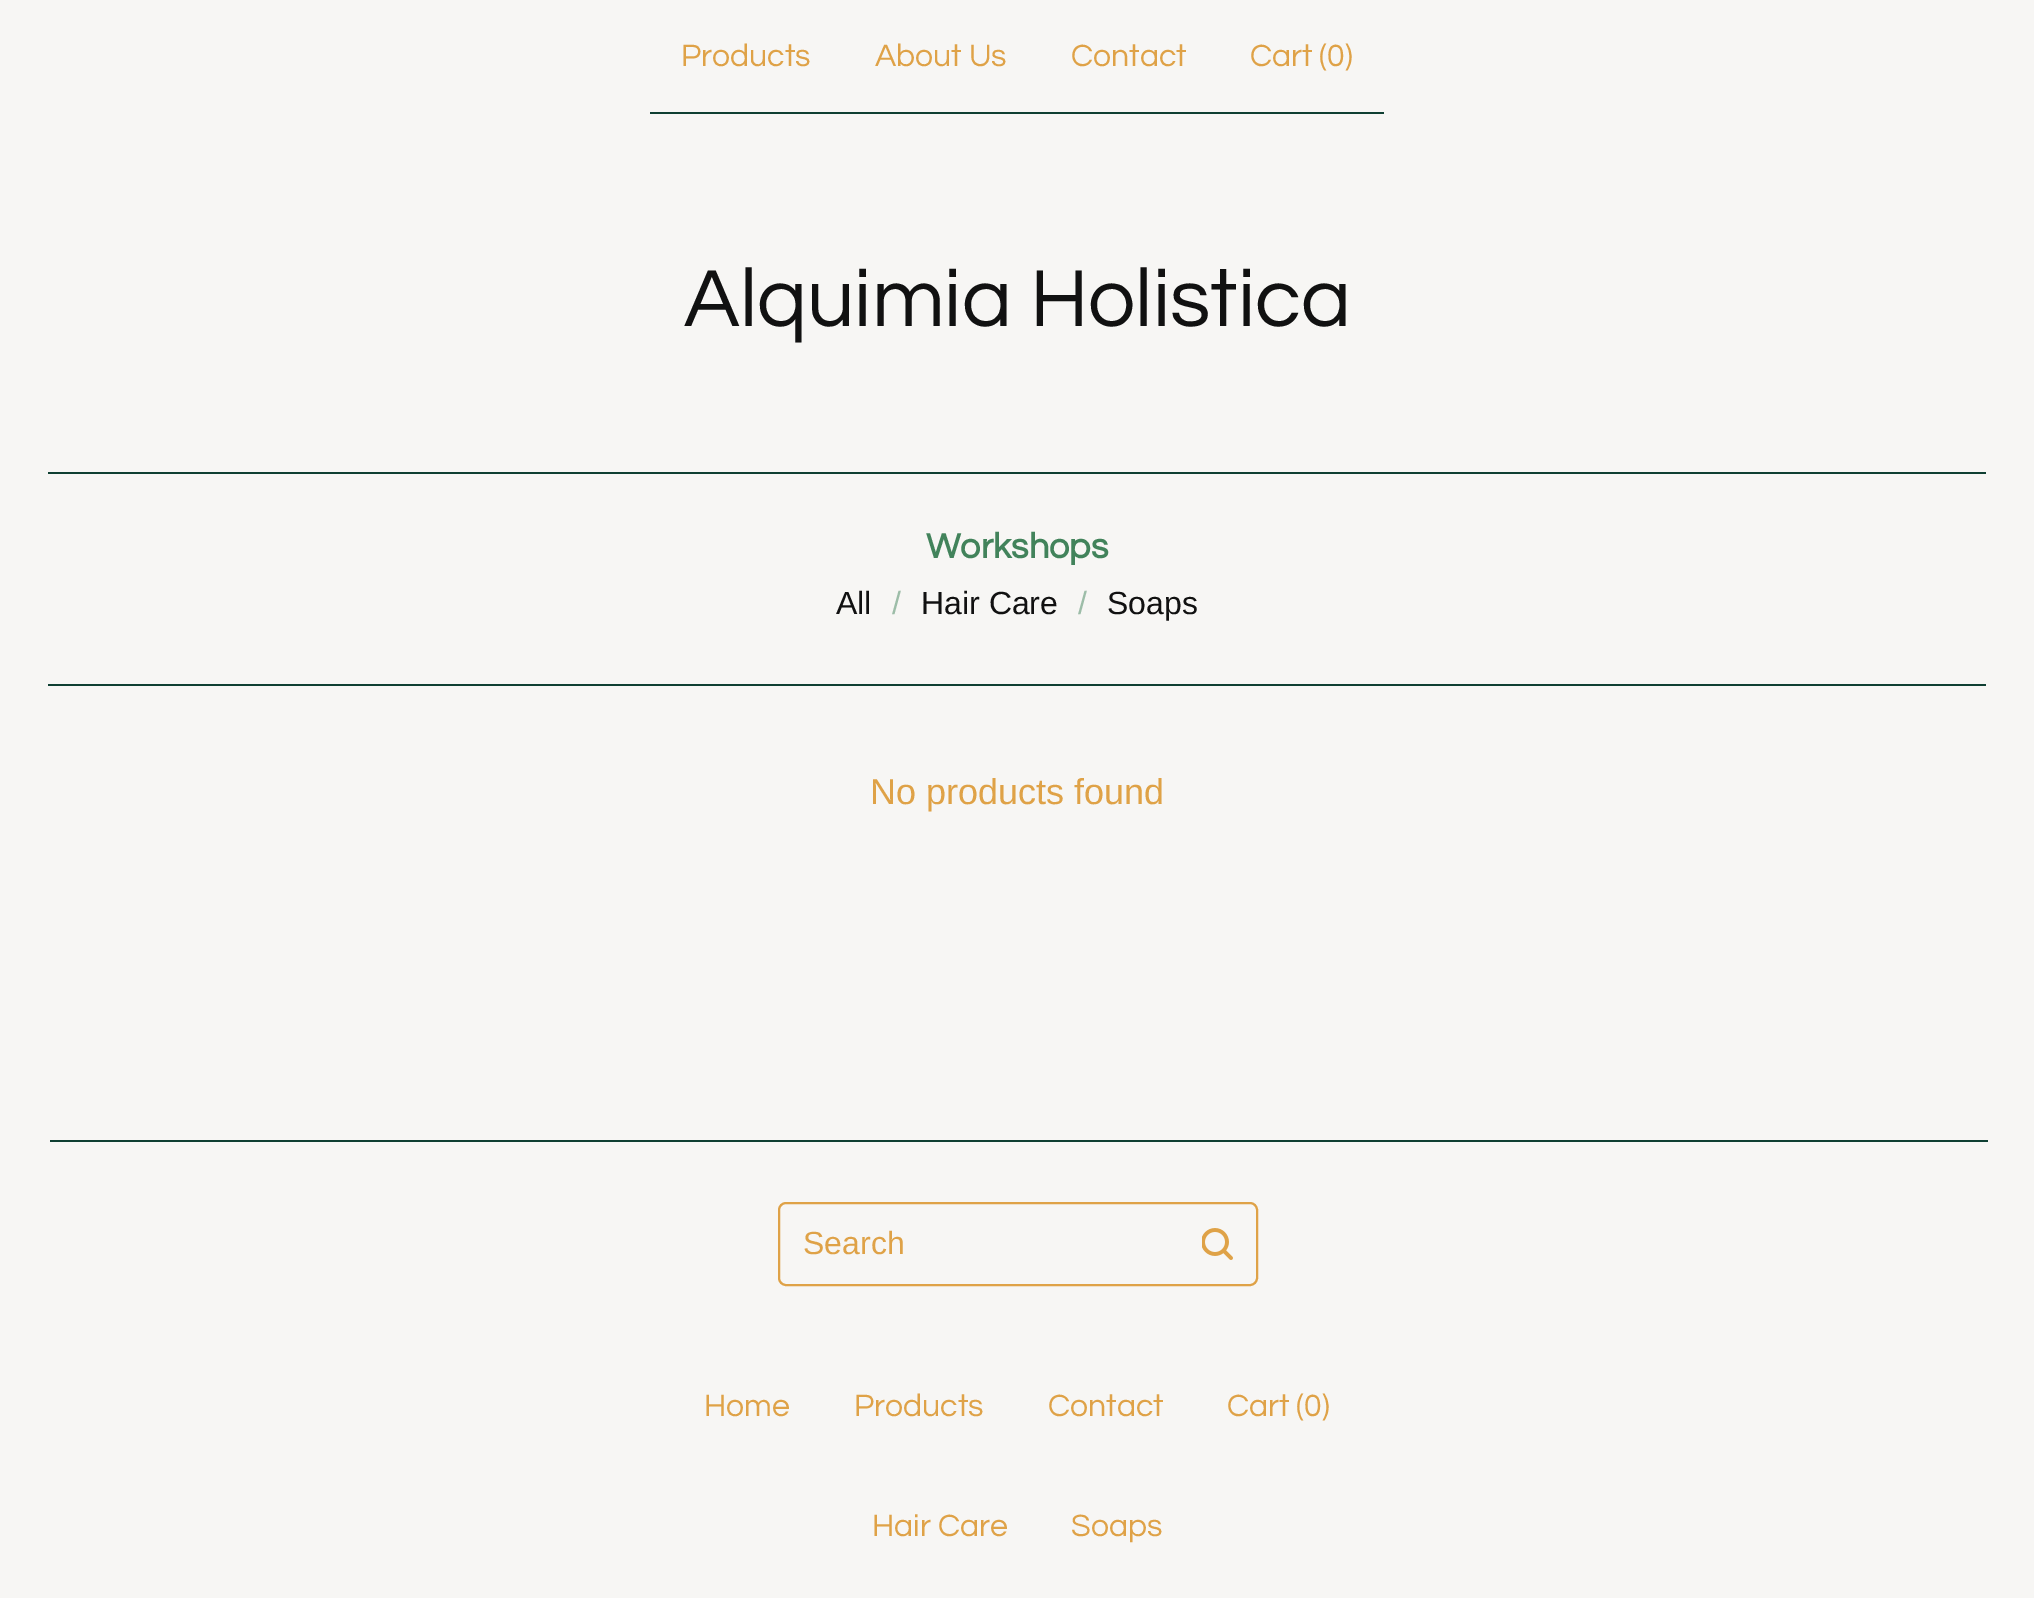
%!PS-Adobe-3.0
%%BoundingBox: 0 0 2034 1598
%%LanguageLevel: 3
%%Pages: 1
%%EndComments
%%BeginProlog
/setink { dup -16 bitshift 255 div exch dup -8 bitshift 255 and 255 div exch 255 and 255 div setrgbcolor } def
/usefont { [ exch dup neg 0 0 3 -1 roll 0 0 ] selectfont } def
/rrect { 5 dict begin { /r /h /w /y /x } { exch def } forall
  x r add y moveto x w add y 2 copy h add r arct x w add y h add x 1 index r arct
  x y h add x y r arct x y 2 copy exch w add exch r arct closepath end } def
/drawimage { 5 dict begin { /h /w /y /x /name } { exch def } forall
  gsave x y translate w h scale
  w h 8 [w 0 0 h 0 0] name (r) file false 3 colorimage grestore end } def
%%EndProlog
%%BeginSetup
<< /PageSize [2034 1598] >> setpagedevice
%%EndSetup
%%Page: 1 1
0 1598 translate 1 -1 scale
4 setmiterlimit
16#F7F6F4 setink
0 0 2034 1598 rectfill
16#0F3F32 setink
650 112 734 2 rectfill
/Questrial-Regular 32 usefont
16#DFA247 setink
[
    [(Products) 681 66]
    [(About Us) 875 66]
    [(Contact) 1071 66]
    [(Cart \(0\)) 1250 66]
] { aload pop moveto show } forall
/Questrial-Regular 84 usefont
16#111111 setink
684 326 moveto (Alquimia Holistica) show
16#0F3F32 setink
48 472 1938 2 rectfill
48 684 1938 2 rectfill
/Questrial-Bold 36 usefont
16#42835B setink
926 558 moveto (Workshops) show
/LiberationSans-Regular 32 usefont
16#111111 setink
836 614 moveto (All) show
16#9DBDA8 setink
892 614 moveto (/) show
16#111111 setink
921 614 moveto (Hair Care) show
16#9DBDA8 setink
1078 614 moveto (/) show
16#111111 setink
1107 614 moveto (Soaps) show
/LiberationSans-Regular 36 usefont
16#DFA247 setink
870 804 moveto (No products found) show
16#0F3F32 setink
50 1140 1938 2 rectfill
16#DFA247 setink
2 setlinewidth
779 1203 478 82 7 rrect stroke
/LiberationSans-Regular 32 usefont
803 1254 moveto (Search) show
(img1.raw) 1202 1228 31 32 drawimage
/Questrial-Regular 32 usefont
[
    [(Home) 704 1416]
    [(Products) 854 1416]
    [(Contact) 1048 1416]
    [(Cart \(0\)) 1227 1416]
    [(Hair Care) 872 1536]
    [(Soaps) 1071 1536]
] { aload pop moveto show } forall
showpage
%%EOF
